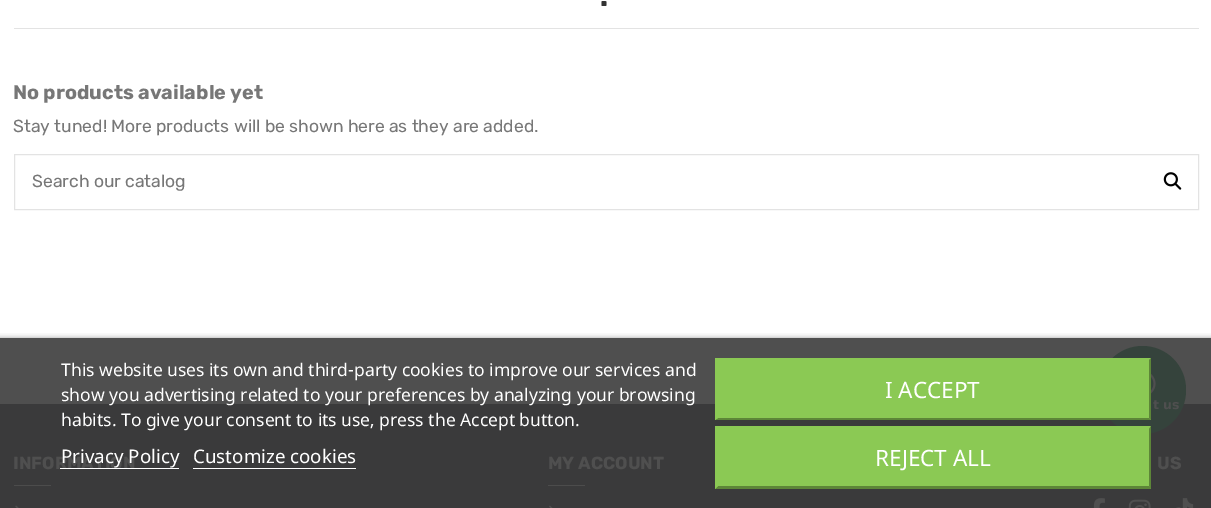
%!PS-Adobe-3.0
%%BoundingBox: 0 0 1211 508
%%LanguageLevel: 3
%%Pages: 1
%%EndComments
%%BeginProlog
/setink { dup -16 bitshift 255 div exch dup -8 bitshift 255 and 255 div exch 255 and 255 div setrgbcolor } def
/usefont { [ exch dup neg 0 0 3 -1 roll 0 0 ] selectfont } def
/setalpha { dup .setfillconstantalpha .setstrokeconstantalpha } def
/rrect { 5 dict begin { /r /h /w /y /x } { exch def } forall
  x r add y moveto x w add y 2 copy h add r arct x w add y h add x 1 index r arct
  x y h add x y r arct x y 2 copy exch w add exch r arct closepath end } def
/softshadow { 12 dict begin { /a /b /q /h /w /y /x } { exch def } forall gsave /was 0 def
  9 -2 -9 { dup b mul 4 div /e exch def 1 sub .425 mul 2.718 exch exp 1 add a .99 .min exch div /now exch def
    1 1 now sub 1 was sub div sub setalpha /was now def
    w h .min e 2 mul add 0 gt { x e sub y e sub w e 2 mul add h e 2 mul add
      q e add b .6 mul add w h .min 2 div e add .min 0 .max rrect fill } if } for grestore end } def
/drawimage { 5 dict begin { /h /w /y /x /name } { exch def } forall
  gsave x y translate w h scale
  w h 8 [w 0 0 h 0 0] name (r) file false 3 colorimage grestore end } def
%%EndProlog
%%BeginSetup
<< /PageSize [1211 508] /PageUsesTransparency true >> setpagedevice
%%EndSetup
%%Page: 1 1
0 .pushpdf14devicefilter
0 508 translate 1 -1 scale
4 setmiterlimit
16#FFFFFF setink
0 0 1211 508 rectfill
16#4F4F4F setink
0 338 1211 66 rectfill
16#E3E3E3 setink
14 28 1185 1 rectfill
/Rubik-Bold 28 usefont
16#333333 setink
600 6 moveto (.) show
/Rubik-Bold 19.75 usefont
16#777777 setink
13 99 moveto (No products available yet) show
/Rubik-Regular 17.5 usefont
13 132 moveto (Stay tuned! More products will be shown here as they are added.) show
16#E3E3E3 setink
14.5 154.5 1184 55 rectstroke
16#777777 setink
32 187 moveto (Search our catalog) show
(img1.raw) 1163 172 19 18 drawimage
16#3A3A3B setink
0 404 1211 104 rectfill
16#4C4C4C setink
14 485 37 1 rectfill
(img2.raw) 15 505 4 3 drawimage
548 485 37 1 rectfill
(img3.raw) 549 505 4 3 drawimage
(img4.raw) 1093 498 12 10 drawimage
(img5.raw) 1128 499 23 9 drawimage
(img6.raw) 1176 498 18 10 drawimage
16#35433C setink
1099 346 87 88 43.5 rrect fill
(img7.raw) 1151 374 5 20 drawimage
gsave
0 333 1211 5 rectclip
16#707070 setink
0 339 1211 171 0 3 1 softshadow
grestore
/NotoSans-Regular 17.5 usefont
16#FFFFFF setink
[
    [(This website uses its own and third-party cookies to improve our services and) 61 376]
    [(show you advertising related to your preferences by analyzing your browsing) 61 401]
    [(habits. To give your consent to its use, press the Accept button.) 61 426]
] { aload pop moveto show } forall
/Rubik-Bold 17.5 usefont
16#4F4F4F setink
13 469 moveto (INFORMATION) show
/NotoSans-Regular 18.75 usefont
16#FFFFFF setink
61 463 moveto (Privacy Policy) show
60 468 119 1 rectfill
193 463 moveto (Customize cookies) show
193 468 163 1 rectfill
16#8BC954 setink
715 358 436 62 rectfill
16#5D8638 setink
1151 358 moveto 1151 420 lineto 1149 418 lineto 1149 360 lineto closepath fill
1151 420 moveto 715 420 lineto 718 418 lineto 1149 418 lineto closepath fill
16#8BC954 setink
715 420 moveto 715 358 lineto 718 360 lineto 718 418 lineto closepath fill
/NotoSans-Regular 22.5 usefont
16#FFFFFF setink
885 398 moveto (I ACCEPT) show
16#8BC954 setink
715 426 436 63 rectfill
16#5D8638 setink
1151 426 moveto 1151 489 lineto 1149 486 lineto 1149 429 lineto closepath fill
1151 489 moveto 715 489 lineto 718 486 lineto 1149 486 lineto closepath fill
16#8BC954 setink
715 489 moveto 715 426 lineto 718 429 lineto 718 486 lineto closepath fill
16#FFFFFF setink
875 466 moveto (REJECT ALL) show
/Rubik-Bold 17.5 usefont
16#4F4F4F setink
548 469 moveto (MY ACCOUNT) show
1157 469 moveto (US) show
/DejaVuSans-Bold 12.5 usefont
1153 409 moveto (t us) show
.poppdf14devicefilter showpage
%%EOF
